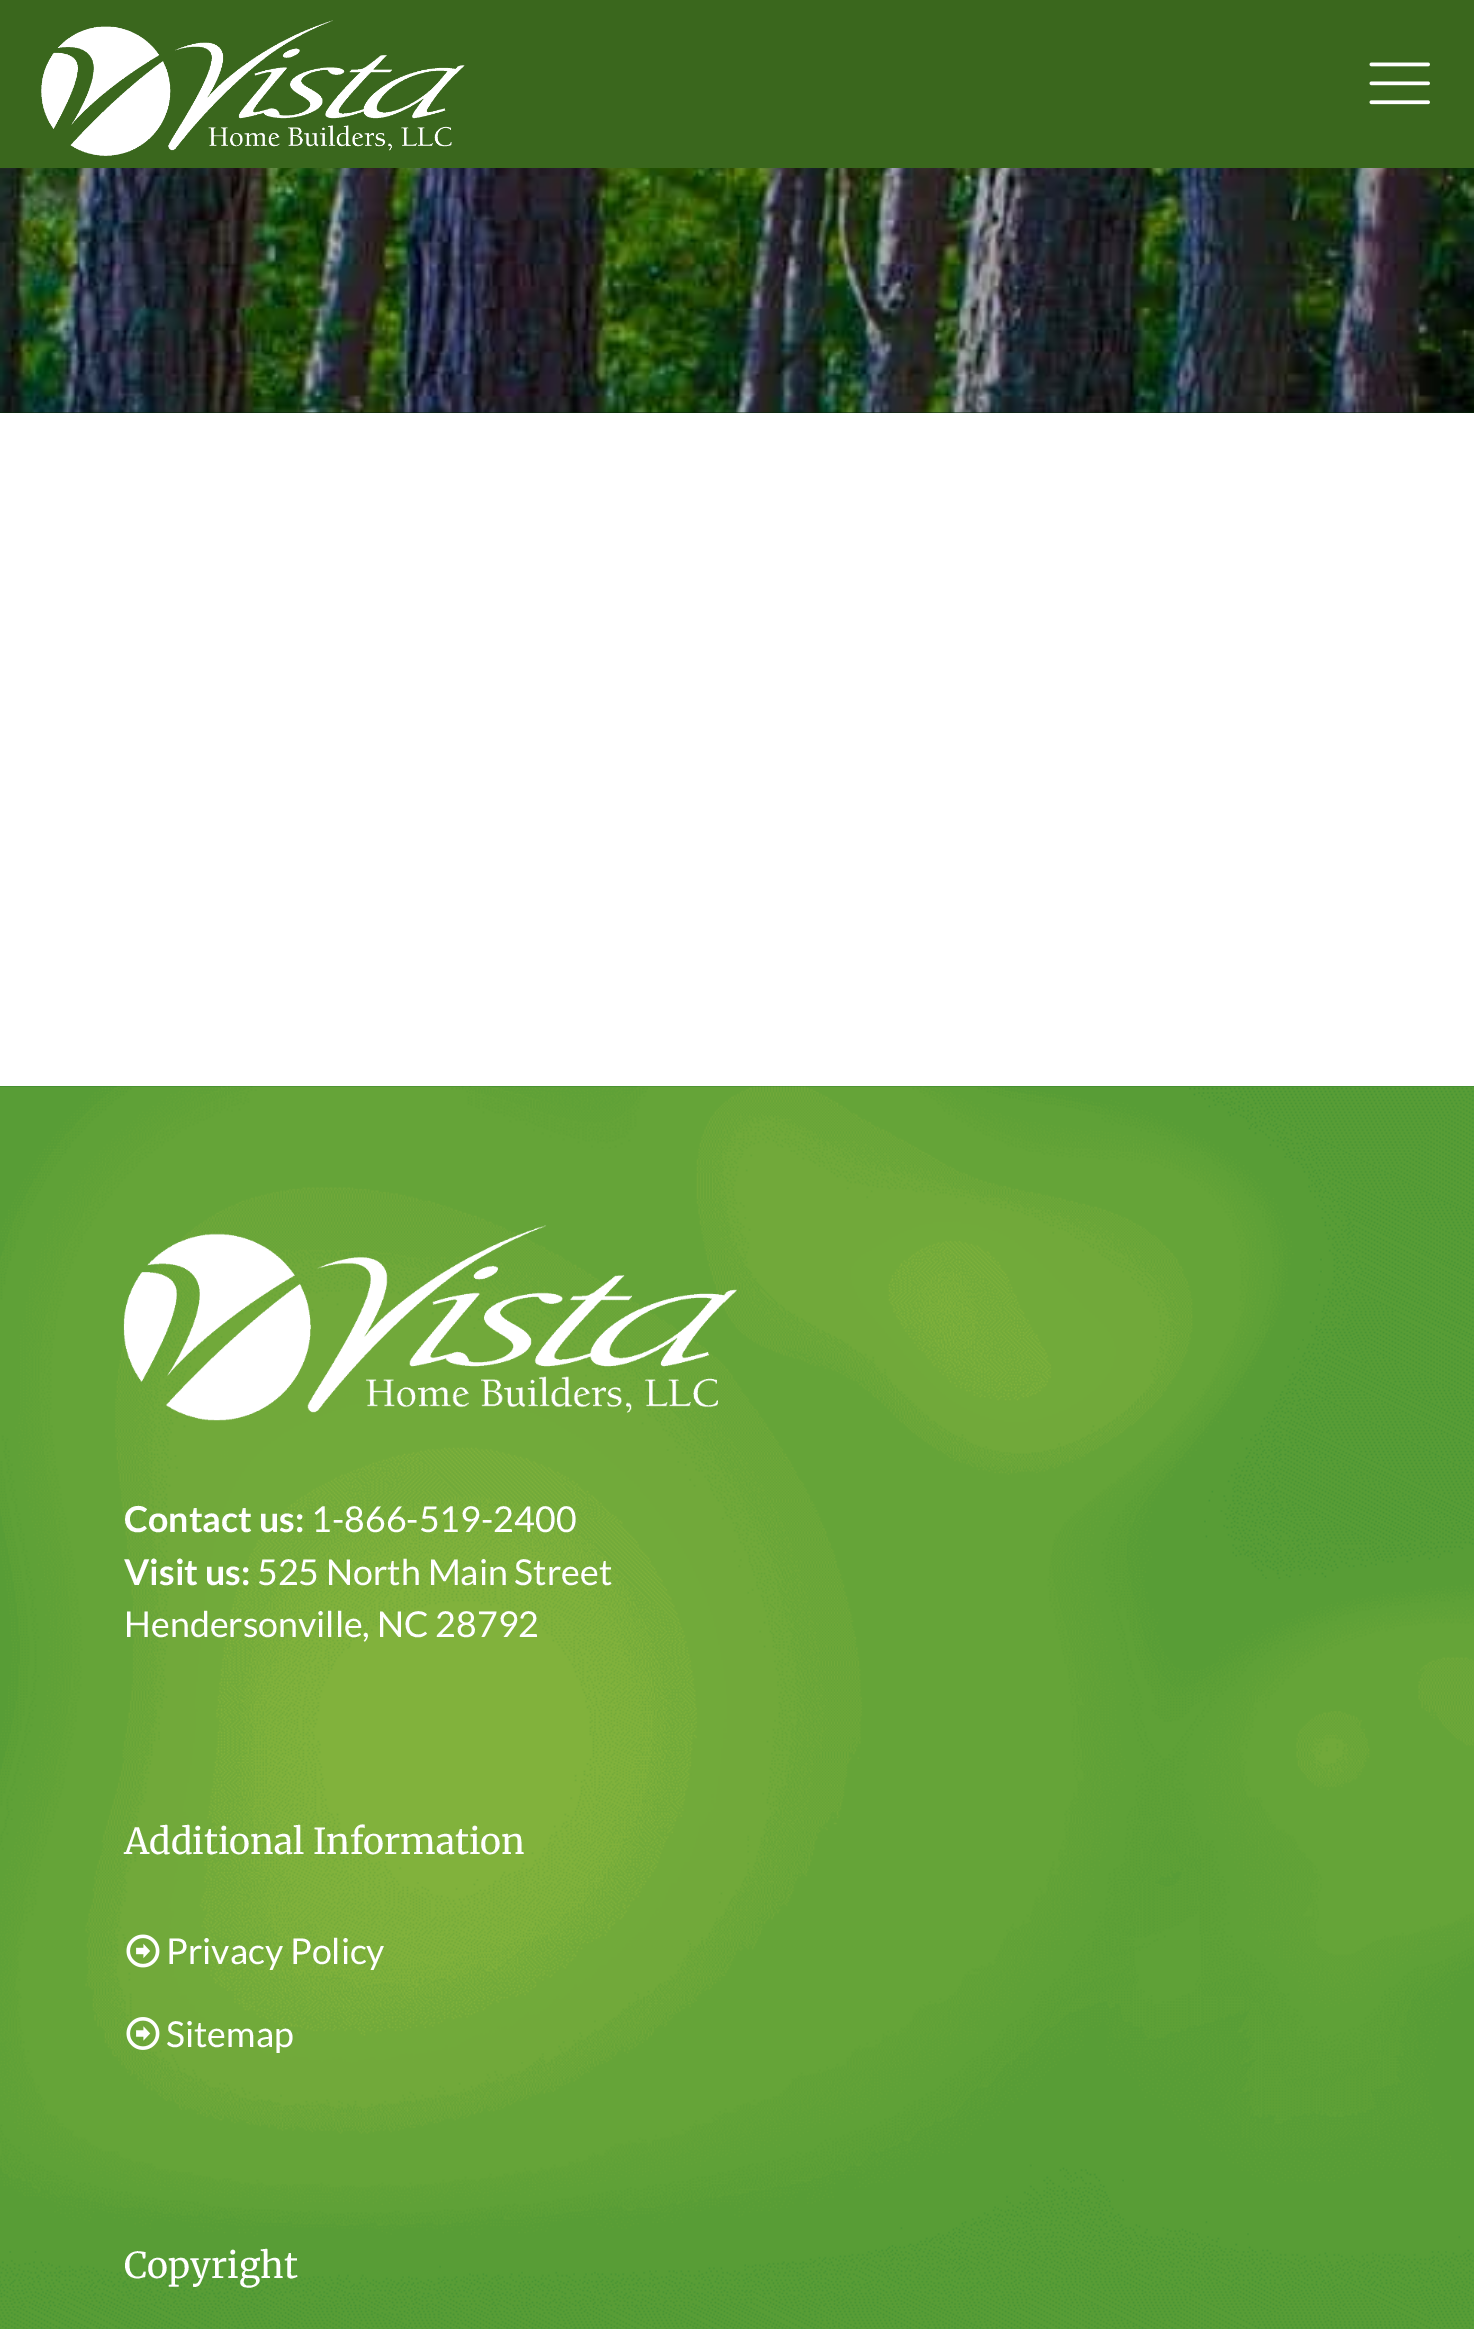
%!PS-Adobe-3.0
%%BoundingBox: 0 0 1474 2329
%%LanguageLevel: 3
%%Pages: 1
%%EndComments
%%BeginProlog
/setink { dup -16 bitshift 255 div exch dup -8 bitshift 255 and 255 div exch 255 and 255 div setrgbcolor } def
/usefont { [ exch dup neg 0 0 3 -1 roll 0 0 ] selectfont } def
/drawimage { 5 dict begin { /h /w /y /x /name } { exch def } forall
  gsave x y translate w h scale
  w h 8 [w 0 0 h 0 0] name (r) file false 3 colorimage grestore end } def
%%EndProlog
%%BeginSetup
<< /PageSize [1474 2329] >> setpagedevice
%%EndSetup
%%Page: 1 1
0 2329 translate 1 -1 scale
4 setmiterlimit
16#FFFFFF setink
0 0 1474 2329 rectfill
16#052606 setink
0 412 1474 1 rectfill
(img1.raw) 0 168 1474 245 drawimage
16#3A671D setink
0 0 1474 168 rectfill
(img2.raw) 41 20 424 136 drawimage
(img3.raw) 1369 62 61 43 drawimage
(img4.raw) 0 1086 1474 1243 drawimage
(img5.raw) 123 1225 614 196 drawimage
/Lato-Bold 35.75 usefont
16#FFFFFF setink
124 1532 moveto (Contact us:) show
/Lato-Regular 35.75 usefont
311 1532 moveto (1-866-519-2400) show
/Lato-Bold 35.75 usefont
124 1585 moveto (Visit us:) show
/Lato-Regular 35.75 usefont
257 1585 moveto (525 North Main Street) show
124 1637 moveto (Hendersonville, NC 28792) show
/Merriweather-Regular 35.75 usefont
124 1854 moveto (Additional Information) show
(img6.raw) 126 1934 34 34 drawimage
/Lato-Regular 35.75 usefont
166 1964 moveto (Privacy Policy) show
(img7.raw) 126 2017 34 33 drawimage
166 2047 moveto (Sitemap) show
/Merriweather-Regular 35.75 usefont
124 2278 moveto (Copyright) show
showpage
%%EOF
